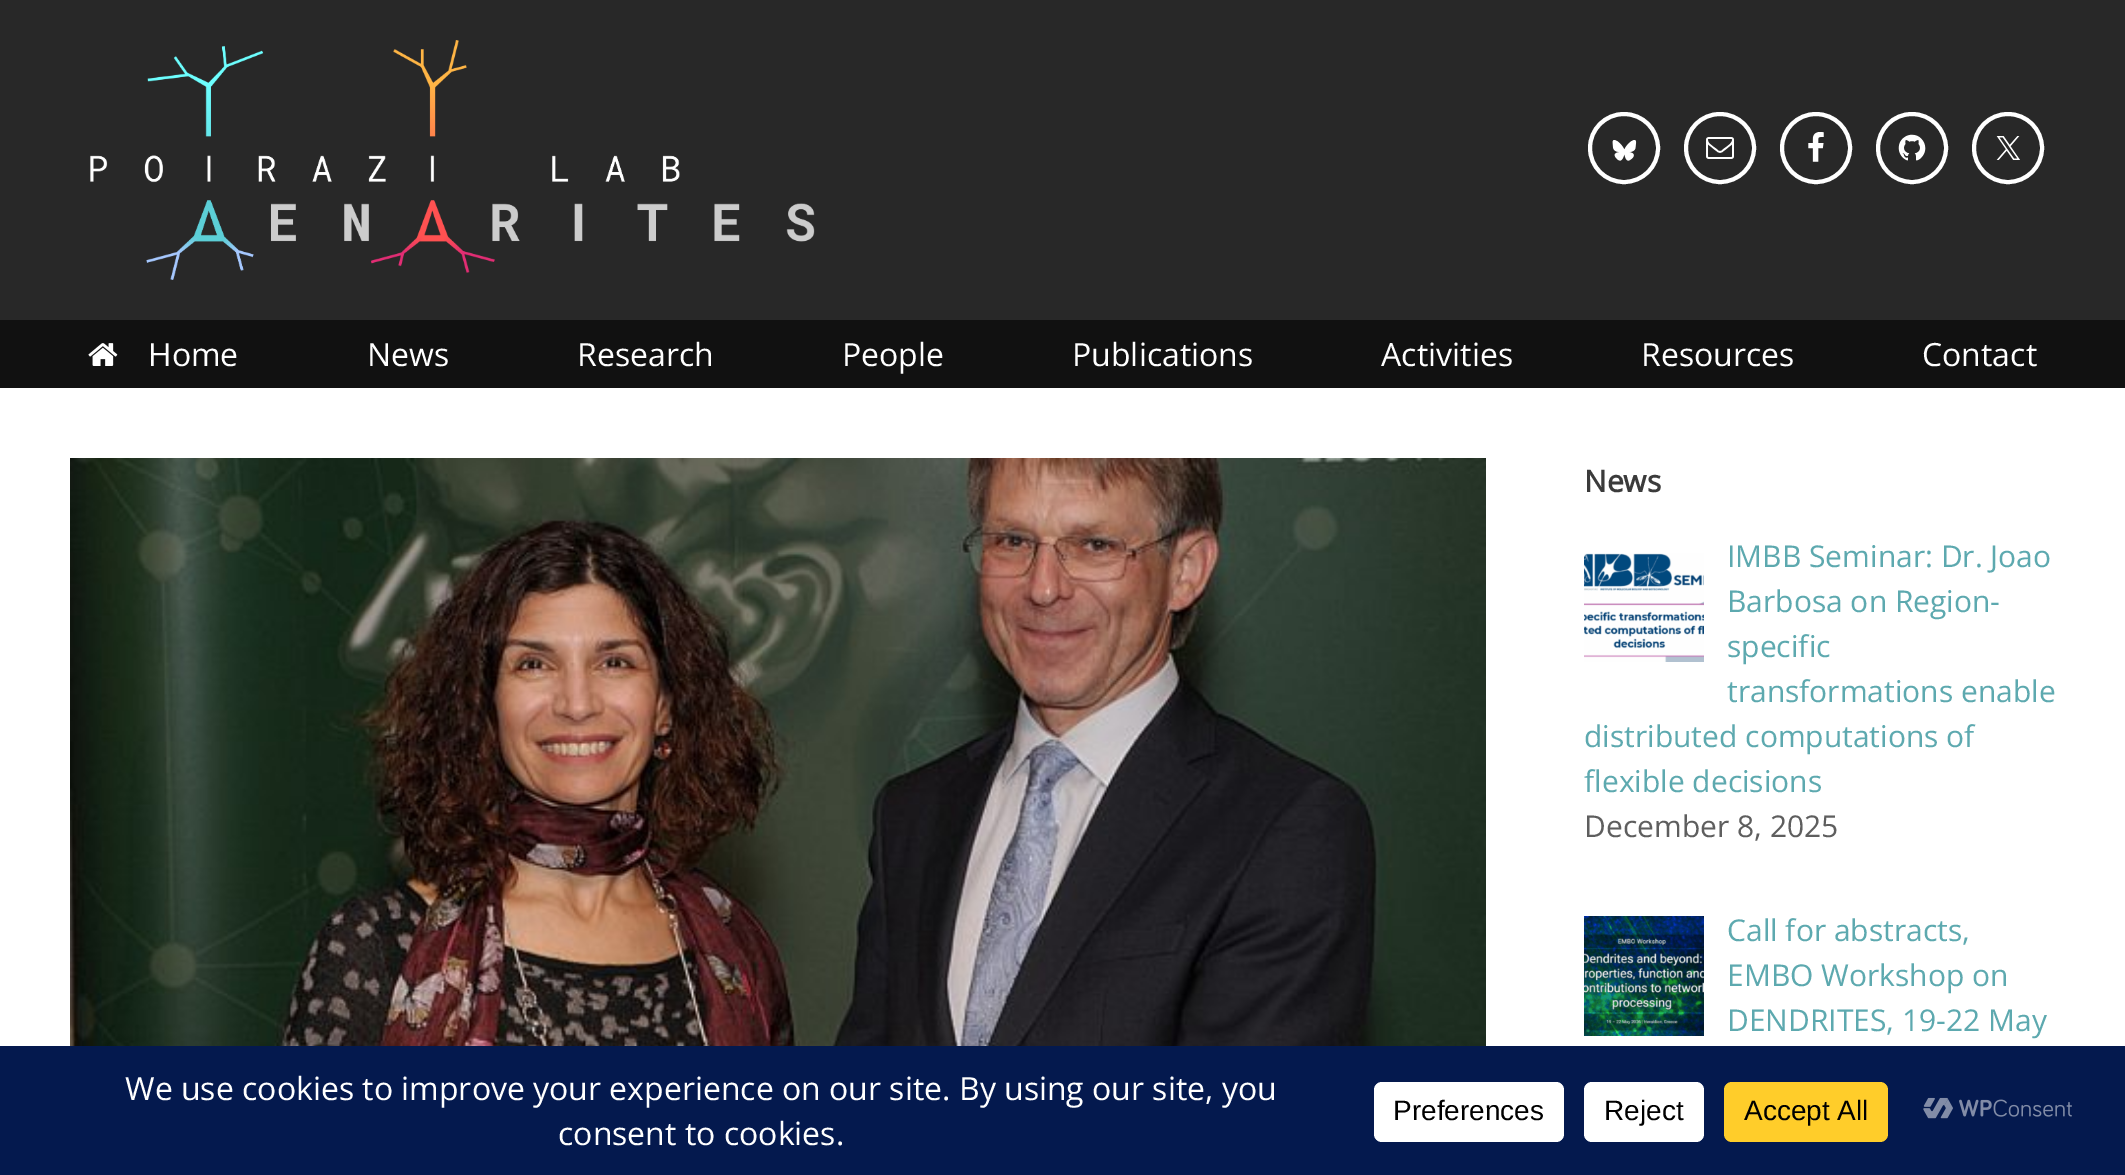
%!PS-Adobe-3.0
%%BoundingBox: 0 0 2125 1175
%%LanguageLevel: 3
%%Pages: 1
%%EndComments
%%BeginProlog
/setink { dup -16 bitshift 255 div exch dup -8 bitshift 255 and 255 div exch 255 and 255 div setrgbcolor } def
/usefont { [ exch dup neg 0 0 3 -1 roll 0 0 ] selectfont } def
/disc { newpath 0 360 arc closepath } def
/rrect { 5 dict begin { /r /h /w /y /x } { exch def } forall
  x r add y moveto x w add y 2 copy h add r arct x w add y h add x 1 index r arct
  x y h add x y r arct x y 2 copy exch w add exch r arct closepath end } def
/drawimage { 5 dict begin { /h /w /y /x /name } { exch def } forall
  gsave x y translate w h scale
  w h 8 [w 0 0 h 0 0] name (r) file false 3 colorimage grestore end } def
%%EndProlog
%%BeginSetup
<< /PageSize [2125 1175] >> setpagedevice
%%EndSetup
%%Page: 1 1
0 1175 translate 1 -1 scale
4 setmiterlimit
16#282828 setink
0 0 2125 1175 rectfill
(img1.raw) 90 40 725 240 drawimage
16#FFFFFF setink
4 setlinewidth
1624 148 34 disc stroke
(img2.raw) 1612 140 25 21 drawimage
1720 148 34 disc stroke
(img3.raw) 1706 137 28 22 drawimage
1816 148 34 disc stroke
(img4.raw) 1808 132 16 30 drawimage
1912 148 34 disc stroke
(img5.raw) 1898 134 28 27 drawimage
2008 148 34 disc stroke
(img6.raw) 1996 136 24 24 drawimage
16#111111 setink
0 320 2125 68 rectfill
(img7.raw) 88 343 30 23 drawimage
/OpenSans-Regular 32 usefont
16#FFFFFF setink
[
    [(Home) 148 366]
    [(News) 367 366]
    [(Research) 577 366]
    [(People) 842 366]
    [(Publications) 1072 366]
    [(Activities) 1381 366]
    [(Resources) 1641 366]
    [(Contact) 1922 366]
] { aload pop moveto show } forall
0 388 2125 658 rectfill
(img8.raw) 70 458 1416 588 drawimage
/OpenSans-Bold 30 usefont
16#3B3B3B setink
1584 492 moveto (News) show
(img9.raw) 1584 553 120 109 drawimage
/OpenSans-Regular 30 usefont
16#5DA9AF setink
[
    [(IMBB Seminar: Dr. Joao) 1727 567]
    [(Barbosa on Region-) 1727 612]
    [(specific) 1727 657]
    [(transformations enable) 1727 702]
    [(distributed computations of) 1584 747]
    [(flexible decisions) 1584 792]
] { aload pop moveto show } forall
16#5E5E5E setink
1584 837 moveto (December 8, 2025) show
(img10.raw) 1584 916 120 120 drawimage
16#5DA9AF setink
[
    [(Call for abstracts,) 1727 941]
    [(EMBO Workshop on) 1727 986]
    [(DENDRITES, 19-22 May) 1727 1031]
] { aload pop moveto show } forall
16#04194E setink
0 1046 2125 129 rectfill
/OpenSans-Regular 32 usefont
16#FFFFFF setink
125 1100 moveto (We use cookies to improve your experience on our site. By using our site, you) show
558 1145 moveto (consent to cookies.) show
1374 1082 190 60 8 rrect fill
/LiberationSans-Regular 28 usefont
16#000000 setink
1393 1120 moveto (Preferences) show
16#FFFFFF setink
1584 1082 120 60 8 rrect fill
16#000000 setink
1604 1120 moveto (Reject) show
16#FFCD2A setink
1724 1082 164 60 8 rrect fill
16#000000 setink
1744 1120 moveto (Accept All) show
(img11.raw) 1923 1097 149 22 drawimage
showpage
%%EOF
